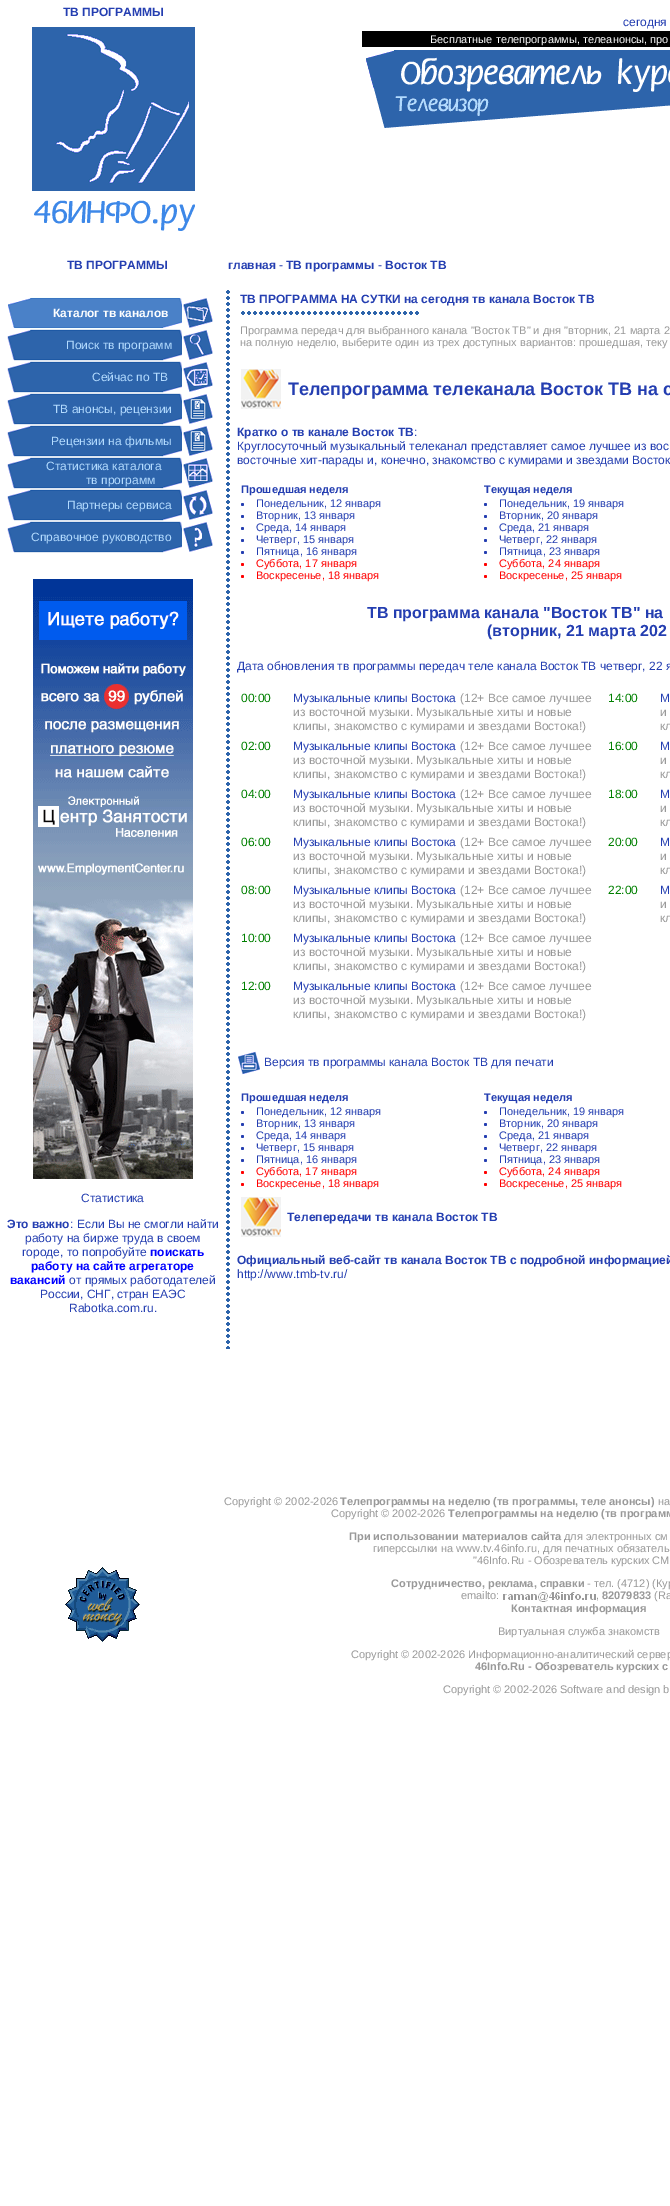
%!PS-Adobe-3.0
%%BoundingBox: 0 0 670 2206
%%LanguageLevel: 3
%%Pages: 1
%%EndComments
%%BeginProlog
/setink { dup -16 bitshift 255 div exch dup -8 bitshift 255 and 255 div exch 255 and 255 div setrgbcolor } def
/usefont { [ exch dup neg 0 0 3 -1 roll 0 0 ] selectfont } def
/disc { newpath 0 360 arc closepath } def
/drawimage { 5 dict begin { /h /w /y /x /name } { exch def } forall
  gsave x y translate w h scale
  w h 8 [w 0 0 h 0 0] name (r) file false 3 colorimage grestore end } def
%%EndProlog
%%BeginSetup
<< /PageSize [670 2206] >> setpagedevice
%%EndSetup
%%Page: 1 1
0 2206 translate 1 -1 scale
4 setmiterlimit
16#FFFFFF setink
0 0 670 2206 rectfill
/LiberationSans-Bold 12 usefont
16#243EB1 setink
63 16 moveto (ТВ ПРОГРАММЫ) show
(img1.raw) 32 27 163 204 drawimage
/LiberationSans-Regular 12 usefont
623 26 moveto (сегодня) show
16#000000 setink
362 31 308 16 rectfill
/LiberationSans-Regular 11 usefont
16#FFFFFF setink
430 43 moveto (Бесплатные телепрограммы, телеанонсы, про) show
(img2.raw) 366 50 304 78 drawimage
/LiberationSans-Bold 12 usefont
16#243EB1 setink
67 269 moveto (ТВ ПРОГРАММЫ) show
228 269 moveto (главная) show
/LiberationSans-Regular 12 usefont
279 269 moveto (-) show
/LiberationSans-Bold 12 usefont
286 269 moveto (ТВ программы) show
/LiberationSans-Regular 12 usefont
378 269 moveto (-) show
/LiberationSans-Bold 12 usefont
385 269 moveto (Восток ТВ) show
(img3.raw) 7 297 175 32 drawimage
16#FFFFFF setink
53 317 moveto (Каталог тв каналов) show
(img4.raw) 183 298 30 30 drawimage
(img5.raw) 7 329 175 32 drawimage
/LiberationSans-Regular 12 usefont
16#B3DBFF setink
66 349 moveto (Поиск тв программ) show
(img6.raw) 183 330 30 30 drawimage
(img5.raw) 7 361 175 32 drawimage
92 381 moveto (Сейчас по ТВ) show
(img7.raw) 183 362 30 30 drawimage
(img5.raw) 7 393 175 32 drawimage
53 413 moveto (ТВ анонсы, рецензии) show
(img8.raw) 183 394 30 30 drawimage
(img5.raw) 7 425 175 32 drawimage
51 445 moveto (Рецензии на фильмы) show
(img8.raw) 183 426 30 30 drawimage
(img5.raw) 7 457 175 32 drawimage
46 470 moveto (Статистика каталога) show
86 484 moveto (тв программ) show
(img9.raw) 183 458 30 30 drawimage
(img5.raw) 7 489 175 32 drawimage
67 509 moveto (Партнеры сервиса) show
(img10.raw) 183 490 30 30 drawimage
(img5.raw) 7 521 175 32 drawimage
31 541 moveto (Справочное руководство) show
(img11.raw) 183 522 30 30 drawimage
(img12.raw) 33 579 160 600 drawimage
16#243EB1 setink
81 1202 moveto (Статистика) show
/LiberationSans-Bold 12 usefont
7 1228 moveto (Это важно) show
/LiberationSans-Regular 12 usefont
[
    [(: Если Вы не смогли найти) 70 1228]
    [(работу на бирже труда в своем) 25 1242]
    [(городе, то попробуйте) 22 1256]
] { aload pop moveto show } forall
/LiberationSans-Bold 12 usefont
16#0000FF setink
[
    [(поискать) 150 1256]
    [(работу на сайте агрегаторе) 31 1270]
    [(вакансий) 10 1284]
] { aload pop moveto show } forall
/LiberationSans-Regular 12 usefont
16#243EB1 setink
[
    [(от прямых работодателей) 69 1284]
    [(России, СНГ, стран ЕАЭС) 40 1298]
    [(Rabotka.com.ru.) 69 1312]
] { aload pop moveto show } forall
(img13.raw) 226 290 4 1059 drawimage
/LiberationSans-Bold 12 usefont
240 303 moveto (ТВ ПРОГРАММА НА СУТКИ на сегодня тв канала Восток ТВ) show
(img14.raw) 241 311 178 4 drawimage
/LiberationSans-Regular 11 usefont
16#999999 setink
240 334 moveto (Программа передач для выбранного канала "Восток ТВ" и дня "вторник, 21 марта 2) show
240 346 moveto (на полную неделю, выберите один из трех доступных вариантов: прошедшая, теку) show
(img15.raw) 241 369 40 40 drawimage
/LiberationSans-Bold 18 usefont
16#243EB1 setink
288 395 moveto (Телепрограмма телеканала Восток ТВ на с) show
/LiberationSans-Bold 12 usefont
237 436 moveto (Кратко о тв канале Восток ТВ) show
/LiberationSans-Regular 12 usefont
[
    [(:) 414 436]
    [(Круглосуточный музыкальный телеканал представляет самое лучшее из вос) 237 450]
    [(восточные хит-парады и, конечно, знакомство с кумирами и звездами Восток) 237 464]
] { aload pop moveto show } forall
/LiberationSans-Bold 11 usefont
241 493 moveto (Прошедшая неделя) show
242.5 504.5 1.5 disc fill
/LiberationSans-Regular 11 usefont
256 507 moveto (Понедельник, 12 января) show
242.5 516.5 1.5 disc fill
256 519 moveto (Вторник, 13 января) show
242.5 528.5 1.5 disc fill
256 531 moveto (Среда, 14 января) show
242.5 540.5 1.5 disc fill
256 543 moveto (Четверг, 15 января) show
242.5 552.5 1.5 disc fill
256 555 moveto (Пятница, 16 января) show
16#FF0000 setink
242.5 564.5 1.5 disc fill
256 567 moveto (Суббота, 17 января) show
242.5 576.5 1.5 disc fill
256 579 moveto (Воскресенье, 18 января) show
/LiberationSans-Bold 11 usefont
16#243EB1 setink
484 493 moveto (Текущая неделя) show
485.5 504.5 1.5 disc fill
/LiberationSans-Regular 11 usefont
499 507 moveto (Понедельник, 19 января) show
485.5 516.5 1.5 disc fill
499 519 moveto (Вторник, 20 января) show
485.5 528.5 1.5 disc fill
499 531 moveto (Среда, 21 января) show
485.5 540.5 1.5 disc fill
499 543 moveto (Четверг, 22 января) show
485.5 552.5 1.5 disc fill
499 555 moveto (Пятница, 23 января) show
16#FF0000 setink
485.5 564.5 1.5 disc fill
499 567 moveto (Суббота, 24 января) show
485.5 576.5 1.5 disc fill
499 579 moveto (Воскресенье, 25 января) show
/LiberationSans-Bold 16 usefont
16#243EB1 setink
367 618 moveto (ТВ программа канала "Восток ТВ" на) show
487 636 moveto (\(вторник, 21 марта 202) show
/LiberationSans-Regular 12 usefont
237 670 moveto (Дата обновления тв программы передач теле канала Восток ТВ четверг, 22 я) show
16#008000 setink
241 702 moveto (00:00) show
16#243EB1 setink
293 702 moveto (Музыкальные клипы Востока) show
16#999999 setink
[
    [(\(12+ Все самое лучшее) 460 702]
    [(из восточной музыки. Музыкальные хиты и новые) 293 716]
    [(клипы, знакомство с кумирами и звездами Востока!\)) 293 730]
] { aload pop moveto show } forall
16#008000 setink
241 750 moveto (02:00) show
16#243EB1 setink
293 750 moveto (Музыкальные клипы Востока) show
16#999999 setink
[
    [(\(12+ Все самое лучшее) 460 750]
    [(из восточной музыки. Музыкальные хиты и новые) 293 764]
    [(клипы, знакомство с кумирами и звездами Востока!\)) 293 778]
] { aload pop moveto show } forall
16#008000 setink
241 798 moveto (04:00) show
16#243EB1 setink
293 798 moveto (Музыкальные клипы Востока) show
16#999999 setink
[
    [(\(12+ Все самое лучшее) 460 798]
    [(из восточной музыки. Музыкальные хиты и новые) 293 812]
    [(клипы, знакомство с кумирами и звездами Востока!\)) 293 826]
] { aload pop moveto show } forall
16#008000 setink
241 846 moveto (06:00) show
16#243EB1 setink
293 846 moveto (Музыкальные клипы Востока) show
16#999999 setink
[
    [(\(12+ Все самое лучшее) 460 846]
    [(из восточной музыки. Музыкальные хиты и новые) 293 860]
    [(клипы, знакомство с кумирами и звездами Востока!\)) 293 874]
] { aload pop moveto show } forall
16#008000 setink
241 894 moveto (08:00) show
16#243EB1 setink
293 894 moveto (Музыкальные клипы Востока) show
16#999999 setink
[
    [(\(12+ Все самое лучшее) 460 894]
    [(из восточной музыки. Музыкальные хиты и новые) 293 908]
    [(клипы, знакомство с кумирами и звездами Востока!\)) 293 922]
] { aload pop moveto show } forall
16#008000 setink
241 942 moveto (10:00) show
16#243EB1 setink
293 942 moveto (Музыкальные клипы Востока) show
16#999999 setink
[
    [(\(12+ Все самое лучшее) 460 942]
    [(из восточной музыки. Музыкальные хиты и новые) 293 956]
    [(клипы, знакомство с кумирами и звездами Востока!\)) 293 970]
] { aload pop moveto show } forall
16#008000 setink
241 990 moveto (12:00) show
16#243EB1 setink
293 990 moveto (Музыкальные клипы Востока) show
16#999999 setink
[
    [(\(12+ Все самое лучшее) 460 990]
    [(из восточной музыки. Музыкальные хиты и новые) 293 1004]
    [(клипы, знакомство с кумирами и звездами Востока!\)) 293 1018]
] { aload pop moveto show } forall
16#008000 setink
608 702 moveto (14:00) show
16#243EB1 setink
660 702 moveto (М) show
16#999999 setink
660 716 moveto (и) show
660 730 moveto (кл) show
16#008000 setink
608 750 moveto (16:00) show
16#243EB1 setink
660 750 moveto (М) show
16#999999 setink
660 764 moveto (и) show
660 778 moveto (кл) show
16#008000 setink
608 798 moveto (18:00) show
16#243EB1 setink
660 798 moveto (М) show
16#999999 setink
660 812 moveto (и) show
660 826 moveto (кл) show
16#008000 setink
608 846 moveto (20:00) show
16#243EB1 setink
660 846 moveto (М) show
16#999999 setink
660 860 moveto (и) show
660 874 moveto (кл) show
16#008000 setink
608 894 moveto (22:00) show
16#243EB1 setink
660 894 moveto (М) show
16#999999 setink
660 908 moveto (и) show
660 922 moveto (кл) show
(img16.raw) 238 1051 22 24 drawimage
16#243EB1 setink
264 1066 moveto (Версия тв программы канала Восток ТВ для печати) show
/LiberationSans-Bold 11 usefont
241 1101 moveto (Прошедшая неделя) show
242.5 1112.5 1.5 disc fill
/LiberationSans-Regular 11 usefont
256 1115 moveto (Понедельник, 12 января) show
242.5 1124.5 1.5 disc fill
256 1127 moveto (Вторник, 13 января) show
242.5 1136.5 1.5 disc fill
256 1139 moveto (Среда, 14 января) show
242.5 1148.5 1.5 disc fill
256 1151 moveto (Четверг, 15 января) show
242.5 1160.5 1.5 disc fill
256 1163 moveto (Пятница, 16 января) show
16#FF0000 setink
242.5 1172.5 1.5 disc fill
256 1175 moveto (Суббота, 17 января) show
242.5 1184.5 1.5 disc fill
256 1187 moveto (Воскресенье, 18 января) show
/LiberationSans-Bold 11 usefont
16#243EB1 setink
484 1101 moveto (Текущая неделя) show
485.5 1112.5 1.5 disc fill
/LiberationSans-Regular 11 usefont
499 1115 moveto (Понедельник, 19 января) show
485.5 1124.5 1.5 disc fill
499 1127 moveto (Вторник, 20 января) show
485.5 1136.5 1.5 disc fill
499 1139 moveto (Среда, 21 января) show
485.5 1148.5 1.5 disc fill
499 1151 moveto (Четверг, 22 января) show
485.5 1160.5 1.5 disc fill
499 1163 moveto (Пятница, 23 января) show
16#FF0000 setink
485.5 1172.5 1.5 disc fill
499 1175 moveto (Суббота, 24 января) show
485.5 1184.5 1.5 disc fill
499 1187 moveto (Воскресенье, 25 января) show
(img15.raw) 241 1197 40 40 drawimage
/LiberationSans-Bold 12 usefont
16#243EB1 setink
287 1221 moveto (Телепередачи тв канала Восток ТВ) show
237 1264 moveto (Официальный веб-сайт тв канала Восток ТВ c подробной информацией) show
/LiberationSans-Regular 12 usefont
237 1278 moveto (http://www.tmb-tv.ru/) show
(img17.raw) 65 1567 75 75 drawimage
/LiberationSans-Regular 11 usefont
16#999999 setink
224 1505 moveto (Copyright © 2002-2026) show
/LiberationSans-Bold 11 usefont
340 1505 moveto (Телепрограммы на неделю \(тв программы, теле анонсы\)) show
/LiberationSans-Regular 11 usefont
658 1505 moveto (на) show
331 1517 moveto (Copyright © 2002-2026) show
/LiberationSans-Bold 11 usefont
448 1517 moveto (Телепрограммы на неделю \(тв программ) show
349 1540 moveto (При использовании материалов сайта) show
/LiberationSans-Regular 11 usefont
[
    [(для электронных см) 564 1540]
    [(гиперссылки на www.tv.46info.ru, для печатных обязатель) 373 1552]
    [("46Info.Ru - Обозреватель курских СМ) 473 1564]
] { aload pop moveto show } forall
/LiberationSans-Bold 11 usefont
391 1587 moveto (Сотрудничество, реклама, справки) show
/LiberationSans-Regular 11 usefont
587 1587 moveto (- тел. \(4712\) \(Кур) show
461 1599 moveto (emailto:) show
(img18.raw) 503 1592 93 10 drawimage
596 1599 moveto (,) show
/LiberationSans-Bold 11 usefont
602 1599 moveto (82079833) show
/LiberationSans-Regular 11 usefont
654 1599 moveto (\(Ra) show
/LiberationSans-Bold 11 usefont
511 1612 moveto (Контактная информация) show
/LiberationSans-Regular 11 usefont
498 1635 moveto (Виртуальная служба знакомств) show
351 1658 moveto (Copyright © 2002-2026 Информационно-аналитический сервер) show
/LiberationSans-Bold 11 usefont
475 1670 moveto (46Info.Ru - Обозреватель курских с) show
/LiberationSans-Regular 11 usefont
443 1693 moveto (Copyright © 2002-2026 Software and design b) show
showpage
%%EOF
